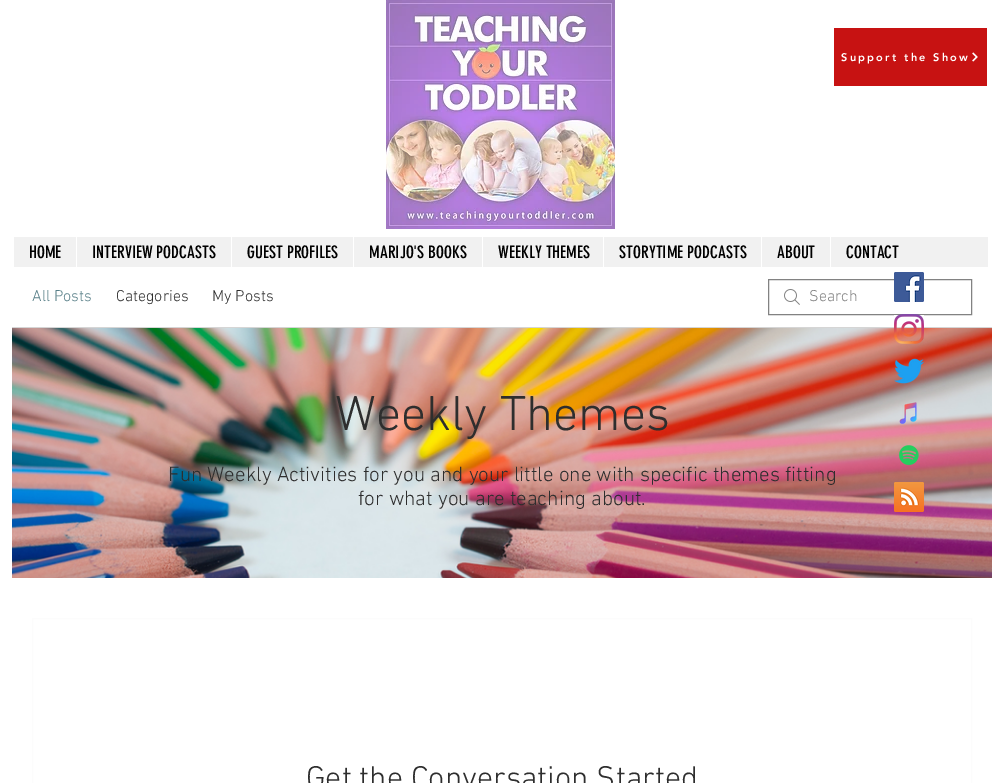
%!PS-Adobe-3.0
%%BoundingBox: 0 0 1004 783
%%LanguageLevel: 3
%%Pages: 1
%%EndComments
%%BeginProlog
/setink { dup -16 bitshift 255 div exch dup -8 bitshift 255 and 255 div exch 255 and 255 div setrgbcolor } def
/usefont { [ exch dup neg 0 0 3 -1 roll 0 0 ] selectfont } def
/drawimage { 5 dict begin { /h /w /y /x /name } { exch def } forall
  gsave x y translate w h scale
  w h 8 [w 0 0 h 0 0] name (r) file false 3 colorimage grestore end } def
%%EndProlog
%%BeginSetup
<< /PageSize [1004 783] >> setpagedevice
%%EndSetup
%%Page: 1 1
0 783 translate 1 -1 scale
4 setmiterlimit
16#FFFFFF setink
0 0 1004 783 rectfill
(img1.raw) 386 0 229 229 drawimage
16#C71212 setink
834 28 153 58 rectfill
/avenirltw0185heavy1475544-Black 11 usefont
16#FFFFFF setink
841 61 moveto 2.25 0 (Support the Show) ashow
(img2.raw) 972 52 6 10 drawimage
16#F1F1F1 setink
14 237 974 30 rectfill
/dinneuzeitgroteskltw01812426-Regular 17 usefont
16#000000 setink
29 258 moveto (HOME) show
16#FFFFFF setink
76 237 1 30 rectfill
16#000000 setink
92 258 moveto (INTERVIEW PODCASTS) show
16#FFFFFF setink
231 237 1 30 rectfill
16#000000 setink
247 258 moveto (GUEST PROFILES) show
16#FFFFFF setink
353 237 1 30 rectfill
16#000000 setink
369 258 moveto (MARIJO'S BOOKS) show
16#FFFFFF setink
482 237 1 30 rectfill
16#000000 setink
498 258 moveto (WEEKLY THEMES) show
16#FFFFFF setink
603 237 1 30 rectfill
16#000000 setink
619 258 moveto (STORYTIME PODCASTS) show
16#FFFFFF setink
761 237 1 30 rectfill
16#000000 setink
777 258 moveto (ABOUT) show
16#FFFFFF setink
830 237 1 30 rectfill
16#000000 setink
846 258 moveto (CONTACT) show
16#D5D5D5 setink
12 327 980 1 rectfill
/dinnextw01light-Light 16 usefont
16#598089 setink
32 301 moveto (All Posts) show
16#2E2E2E setink
116 301 moveto (Categories) show
212 301 moveto (My Posts) show
(img3.raw) 784 289 16 16 drawimage
16#828282 setink
768.5 279.5 203 35 rectstroke
809 301 moveto (Search) show
(img4.raw) 12 328 980 250 drawimage
/dinnextw01light-Light 50 usefont
16#2E2E2E setink
335 430 moveto (Weekly Themes) show
/dinnextw01light-Light 21 usefont
168 481 moveto (Fun Weekly Activities for you and your little one with specific themes fitting) show
358 505 moveto (for what you are teaching about.) show
16#FCFCFC setink
32.5 618.5 939 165 rectstroke
/dinnextw01light-Light 32 usefont
16#2E2E2E setink
306 788 moveto (Get the Conversation Started) show
(img5.raw) 894 272 30 30 drawimage
(img6.raw) 894 314 30 30 drawimage
(img7.raw) 894 358 30 26 drawimage
(img8.raw) 899 402 18 22 drawimage
(img9.raw) 898 445 21 21 drawimage
(img10.raw) 894 482 30 30 drawimage
showpage
%%EOF
